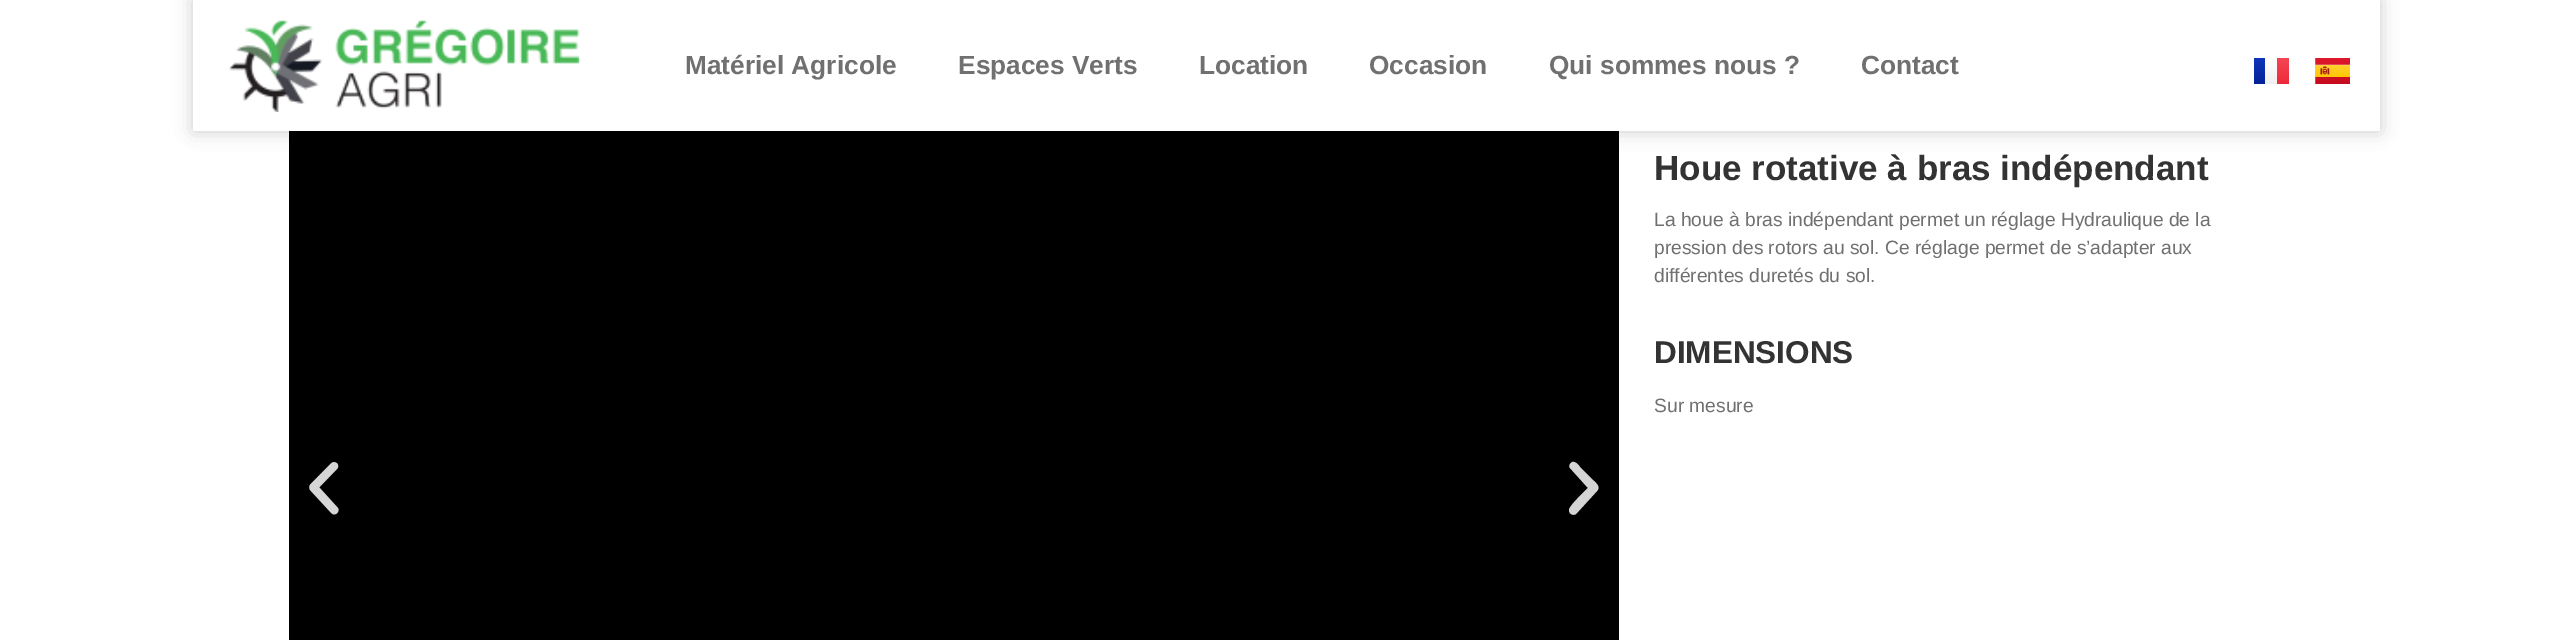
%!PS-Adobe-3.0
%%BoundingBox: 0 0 2572 640
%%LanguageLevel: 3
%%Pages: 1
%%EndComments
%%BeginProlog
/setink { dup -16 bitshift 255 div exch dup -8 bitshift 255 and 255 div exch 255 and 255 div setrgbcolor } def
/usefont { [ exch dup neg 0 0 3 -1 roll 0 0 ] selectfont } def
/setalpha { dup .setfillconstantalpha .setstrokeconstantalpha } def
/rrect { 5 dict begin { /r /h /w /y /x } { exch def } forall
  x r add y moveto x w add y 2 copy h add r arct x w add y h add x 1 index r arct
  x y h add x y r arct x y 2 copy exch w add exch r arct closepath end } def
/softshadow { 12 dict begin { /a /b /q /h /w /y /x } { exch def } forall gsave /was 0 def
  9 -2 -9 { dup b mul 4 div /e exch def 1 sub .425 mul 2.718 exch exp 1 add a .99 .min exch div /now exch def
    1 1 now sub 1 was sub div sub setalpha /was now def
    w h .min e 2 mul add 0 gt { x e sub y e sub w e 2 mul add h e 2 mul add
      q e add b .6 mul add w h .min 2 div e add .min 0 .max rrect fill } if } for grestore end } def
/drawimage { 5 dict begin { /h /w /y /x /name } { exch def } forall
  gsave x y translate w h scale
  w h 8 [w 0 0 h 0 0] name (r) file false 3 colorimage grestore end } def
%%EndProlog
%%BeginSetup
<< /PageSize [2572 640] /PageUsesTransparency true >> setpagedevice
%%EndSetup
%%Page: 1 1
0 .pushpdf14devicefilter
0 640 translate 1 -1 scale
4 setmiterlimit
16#FFFFFF setink
0 0 2572 640 rectfill
16#000000 setink
289 131 1330 509 rectfill
gsave
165 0 moveto 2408 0 lineto 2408 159 lineto 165 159 lineto closepath 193 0 moveto 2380 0 lineto 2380 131 lineto 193 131 lineto closepath eoclip newpath
193 0 2187 131 0 9 0.2 softshadow
grestore
(img1.raw) 229 20 351 92 drawimage
/LiberationSans-Bold 26.25 usefont
16#707070 setink
[
    [(Matériel Agricole) 685 74]
    [(Espaces Verts) 958 74]
    [(Location) 1199 74]
    [(Occasion) 1369 74]
    [(Qui sommes nous ?) 1549 74]
    [(Contact) 1861 74]
] { aload pop moveto show } forall
gsave 2277 58 moveto 2289 58 lineto 2289 84 lineto 2277 84 lineto closepath clip newpath
<< /ShadingType 2 /ColorSpace /DeviceRGB /Coords [2279 58 2279 84] /Extend [true true] /Function << /FunctionType 2 /Domain [0 1] /C0 [0.957 0.275 0.325] /C1 [0.933 0.165 0.224] /N 1 >> >> shfill grestore
gsave 2254 58 moveto 2265 58 lineto 2265 84 lineto 2254 84 lineto closepath clip newpath
<< /ShadingType 2 /ColorSpace /DeviceRGB /Coords [2258 58 2258 84] /Extend [true true] /Function << /FunctionType 2 /Domain [0 1] /C0 [0.063 0.208 0.733] /C1 [0.016 0.137 0.588] /N 1 >> >> shfill grestore
gsave 2265 62 moveto 2277 62 lineto 2277 84 lineto 2265 84 lineto closepath clip newpath
<< /ShadingType 2 /ColorSpace /DeviceRGB /Coords [2271 58 2271 84] /Extend [true true] /Function << /FunctionType 2 /Domain [0 1] /C0 [1 1 1] /C1 [0.941 0.941 0.941] /N 1 >> >> shfill grestore
(img2.raw) 2315 58 35 26 drawimage
(img3.raw) 309 462 30 53 drawimage
16#D5D5D5 setink
1597 491 moveto 1601 487 1596 483 1594 481 curveto 1580 467 lineto 1578 464 1573 459 1570 464 curveto 1569 466 1569 467 1570 468 curveto 1588 488 lineto 1585 491 1569 506 1569 510 curveto 1569 514 1573 516 1576 514 curveto closepath fill
/LiberationSans-Bold 35 usefont
16#333333 setink
1654 180 moveto (Houe rotative à bras indépendant) show
/LiberationSans-Regular 19.25 usefont
16#707070 setink
[
    [(La houe à bras indépendant permet un réglage Hydraulique de la) 1654 226]
    [(pression des rotors au sol. Ce réglage permet de s’adapter aux) 1654 254]
    [(différentes duretés du sol.) 1654 282]
] { aload pop moveto show } forall
/LiberationSans-Bold 31.5 usefont
16#333333 setink
1654 363 moveto (DIMENSIONS) show
/LiberationSans-Regular 19.25 usefont
16#707070 setink
1654 412 moveto (Sur mesure) show
.poppdf14devicefilter showpage
%%EOF
